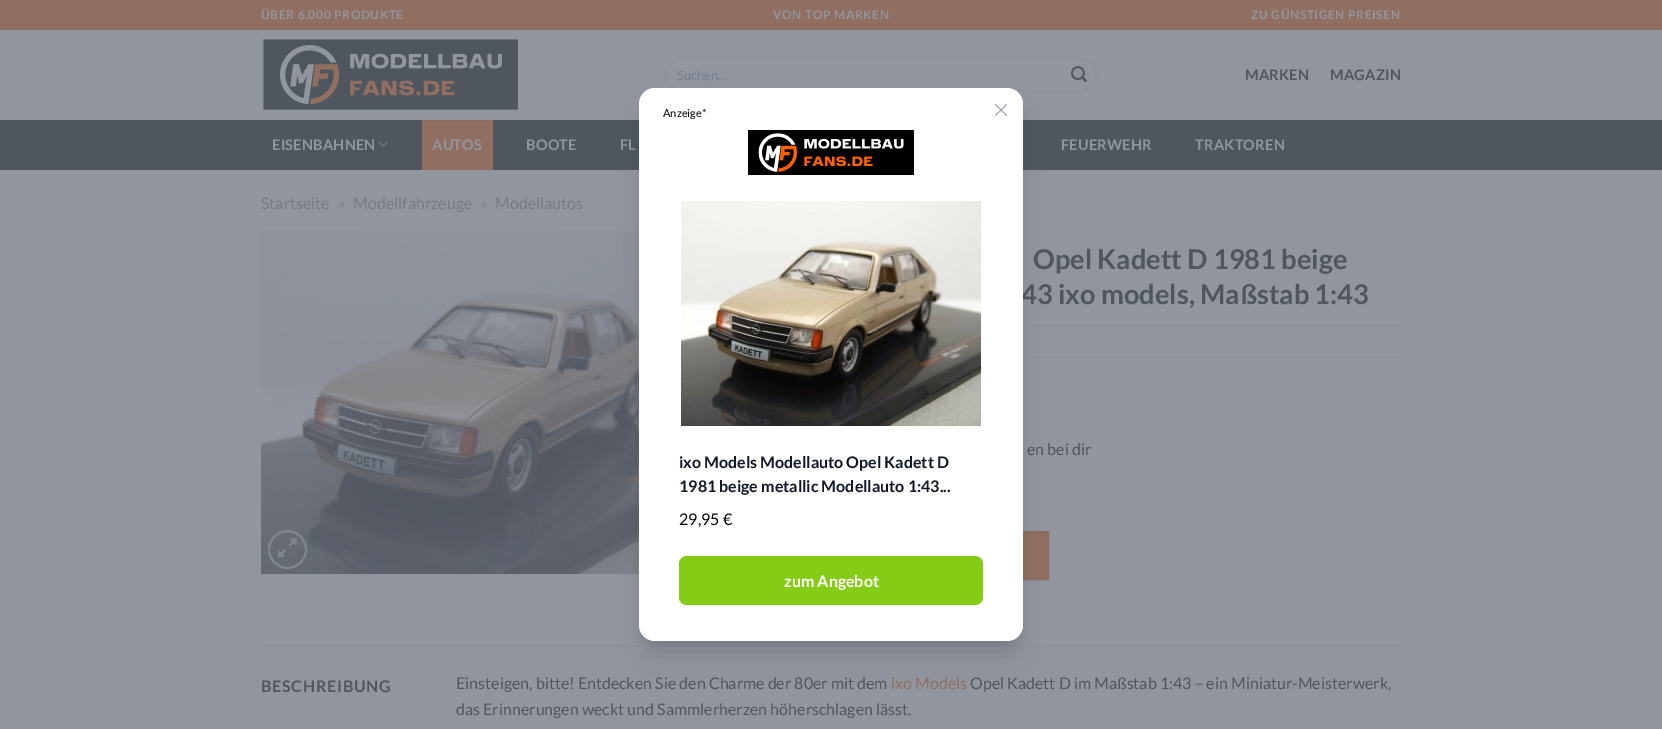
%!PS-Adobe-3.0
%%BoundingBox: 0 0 1662 729
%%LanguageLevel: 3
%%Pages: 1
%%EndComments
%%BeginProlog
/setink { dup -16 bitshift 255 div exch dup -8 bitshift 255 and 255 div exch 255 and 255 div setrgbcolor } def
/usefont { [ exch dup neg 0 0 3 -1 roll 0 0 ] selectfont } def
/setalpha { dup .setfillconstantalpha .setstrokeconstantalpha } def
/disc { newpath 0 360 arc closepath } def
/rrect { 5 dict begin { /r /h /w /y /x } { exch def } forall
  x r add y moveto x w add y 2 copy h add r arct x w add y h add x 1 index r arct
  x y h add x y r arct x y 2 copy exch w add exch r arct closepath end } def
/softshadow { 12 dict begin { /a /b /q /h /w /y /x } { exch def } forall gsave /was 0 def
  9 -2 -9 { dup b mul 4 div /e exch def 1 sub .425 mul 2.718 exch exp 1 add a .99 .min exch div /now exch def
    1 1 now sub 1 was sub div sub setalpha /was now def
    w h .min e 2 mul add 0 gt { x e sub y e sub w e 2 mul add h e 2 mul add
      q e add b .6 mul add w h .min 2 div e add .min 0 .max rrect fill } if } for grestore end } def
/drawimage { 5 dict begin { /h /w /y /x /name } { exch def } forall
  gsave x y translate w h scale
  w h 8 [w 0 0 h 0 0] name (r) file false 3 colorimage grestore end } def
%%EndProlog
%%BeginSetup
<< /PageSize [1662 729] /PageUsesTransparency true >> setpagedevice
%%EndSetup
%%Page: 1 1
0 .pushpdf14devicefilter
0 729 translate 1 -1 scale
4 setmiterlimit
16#9095A0 setink
0 0 1662 729 rectfill
16#906E60 setink
0 0 1662 30 rectfill
/Lato-Bold 12 usefont
16#9095A0 setink
261 19 moveto 0.6 0 (ÜBER 6.000 PRODUKTE) ashow
773 19 moveto 0.6 0 (VON TOP MARKEN) ashow
1251 19 moveto 0.6 0 (ZU GÜNSTIGEN PREISEN) ashow
(img1.raw) 263 39 255 71 drawimage
0.09 setalpha
16#505660 setink
666.5 58.5 430 33 16.5 rrect stroke
/Lato-Regular 13 usefont
1 setalpha
16#777E8C setink
677 80 moveto (Suchen…) show
(img2.raw) 1071 66 16 16 drawimage
/Lato-Bold 14.5 usefont
16#505660 setink
1245 80 moveto 0.25 0 (MARKEN) ashow
1330 80 moveto 0.25 0 (MAGAZIN) ashow
0 120 1662 50 rectfill
16#9095A0 setink
272 150 moveto 0.25 0 (EISENBAHNEN) ashow
(img3.raw) 378 141 10 6 drawimage
16#906E60 setink
422 121 71 49 rectfill
16#8A6B60 setink
422 120 71 1 rectfill
16#9095A0 setink
432 150 moveto 0.25 0 (AUTOS) ashow
526 150 moveto 0.25 0 (BOOTE) ashow
620 150 moveto 0.25 0 (FL) ashow
1061 150 moveto 0.25 0 (FEUERWEHR) ashow
1195 150 moveto 0.25 0 (TRAKTOREN) ashow
/Lato-Regular 16 usefont
16#757B85 setink
261 209 moveto (Startseite) show
16#7D828D setink
338 209 moveto (») show
16#757B85 setink
353 209 moveto (Modellfahrzeuge) show
16#7D828D setink
480 209 moveto (») show
16#757B85 setink
495 209 moveto (Modellautos) show
(img4.raw) 261 231 378 343 drawimage
16#808690 setink
2 setlinewidth
287.5 549.5 18.5 disc stroke
(img5.raw) 278 538 19 20 drawimage
/Lato-Bold 27.25 usefont
16#505660 setink
1033 269 moveto (Opel Kadett D 1981 beige) show
1021 304 moveto (43 ixo models, Maßstab 1:43) show
16#888D97 setink
1 setlinewidth
[1 1] 0 setdash
749 325.5 moveto 1401 325.5 lineto stroke
749 356.5 moveto 1401 356.5 lineto stroke
/Lato-Regular 16 usefont
16#505660 setink
1027 455 moveto (en bei dir) show
16#906E60 setink
1023 532 25 47 rectfill
16#8D6D60 setink
[] 0 setdash
749.5 531.5 299 48 rectstroke
16#8B919B setink
261 645 1140 1 rectfill
/Lato-Bold 16 usefont
16#505660 setink
261 692 moveto 0.75 0 (BESCHREIBUNG) ashow
/Lato-Regular 16 usefont
456 689 moveto (Einsteigen, bitte! Entdecken Sie den Charme der 80er mit dem) show
16#906E60 setink
891 689 moveto (ixo Models) show
16#505660 setink
970 689 moveto (Opel Kadett D im Maßstab 1:43 – ein Miniatur-Meisterwerk,) show
456 715 moveto (das Erinnerungen weckt und Sammlerherzen höherschlagen lässt.) show
16#000000 setink
645 102 372 541 10 5 0.1 softshadow
644 113 374 543 11 12.5 0.1 softshadow
16#FFFFFF setink
639 88 384 553 16 rrect fill
/Lato-Regular 11 usefont
16#000000 setink
663 117 moveto (Anzeige*) show
16#9CA3AF setink
0.8 setlinewidth
1 setlinecap
1 setlinejoin
995.5 115.5 moveto 1006.5 104.5 lineto 995.5 104.5 moveto 1006.5 115.5 lineto stroke
(img6.raw) 748 130 166 45 drawimage
(img7.raw) 681 201 300 225 drawimage
/Lato-Bold 16 usefont
16#111827 setink
679 468 moveto (ixo Models Modellauto Opel Kadett D) show
679 492 moveto (1981 beige metallic Modellauto 1:43...) show
/Lato-Regular 16 usefont
16#000000 setink
679 525 moveto (29,95 €) show
679 557 304 49 8 1 0.05 softshadow
16#84CC16 setink
679 556 304 49 8 rrect fill
/Lato-Bold 16 usefont
16#FFFFFF setink
784 587 moveto (zum Angebot) show
.poppdf14devicefilter showpage
%%EOF
